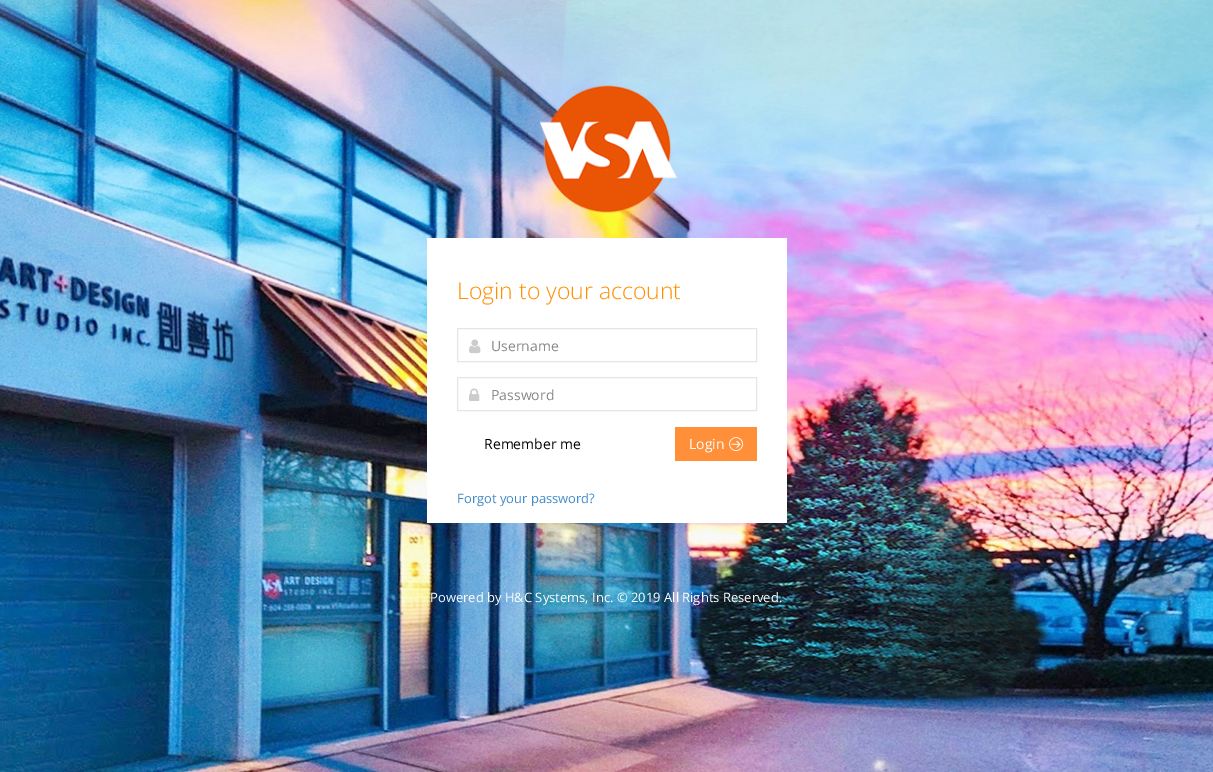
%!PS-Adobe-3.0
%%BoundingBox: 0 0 1213 772
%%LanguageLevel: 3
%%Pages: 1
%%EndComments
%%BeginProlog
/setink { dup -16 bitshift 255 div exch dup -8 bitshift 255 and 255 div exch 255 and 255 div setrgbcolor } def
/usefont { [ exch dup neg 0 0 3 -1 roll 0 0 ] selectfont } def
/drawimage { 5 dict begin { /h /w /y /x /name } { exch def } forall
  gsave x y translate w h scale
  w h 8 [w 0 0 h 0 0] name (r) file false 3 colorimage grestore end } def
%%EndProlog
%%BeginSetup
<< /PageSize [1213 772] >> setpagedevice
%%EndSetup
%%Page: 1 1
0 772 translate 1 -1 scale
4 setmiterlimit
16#FFFFFF setink
0 0 1213 772 rectfill
(img1.raw) 0 0 1213 772 drawimage
(img2.raw) 539 85 138 128 drawimage
427 238 360 285 rectfill
/OpenSans-Light 23 usefont
16#FF8F00 setink
457 299 moveto (Login to your account) show
16#E5E5E5 setink
457.5 328.5 299 33 rectstroke
(img3.raw) 469 339 12 15 drawimage
/OpenSans-Regular 14 usefont
16#888888 setink
491 351 moveto (Username) show
16#E5E5E5 setink
457.5 377.5 299 33 rectstroke
(img4.raw) 469 388 11 13 drawimage
16#888888 setink
491 400 moveto (Password) show
16#000000 setink
484 449 moveto (Remember me) show
16#FF8F38 setink
675 427 82 34 rectfill
16#FFFFFF setink
689 449 moveto (Login) show
(img5.raw) 729 437 14 14 drawimage
/OpenSans-Regular 13 usefont
16#428BCA setink
457 503 moveto (Forgot your password?) show
16#FFFFFF setink
430 602 moveto (Powered by H&C Systems, Inc. © 2019 All Rights Reserved.) show
showpage
%%EOF
